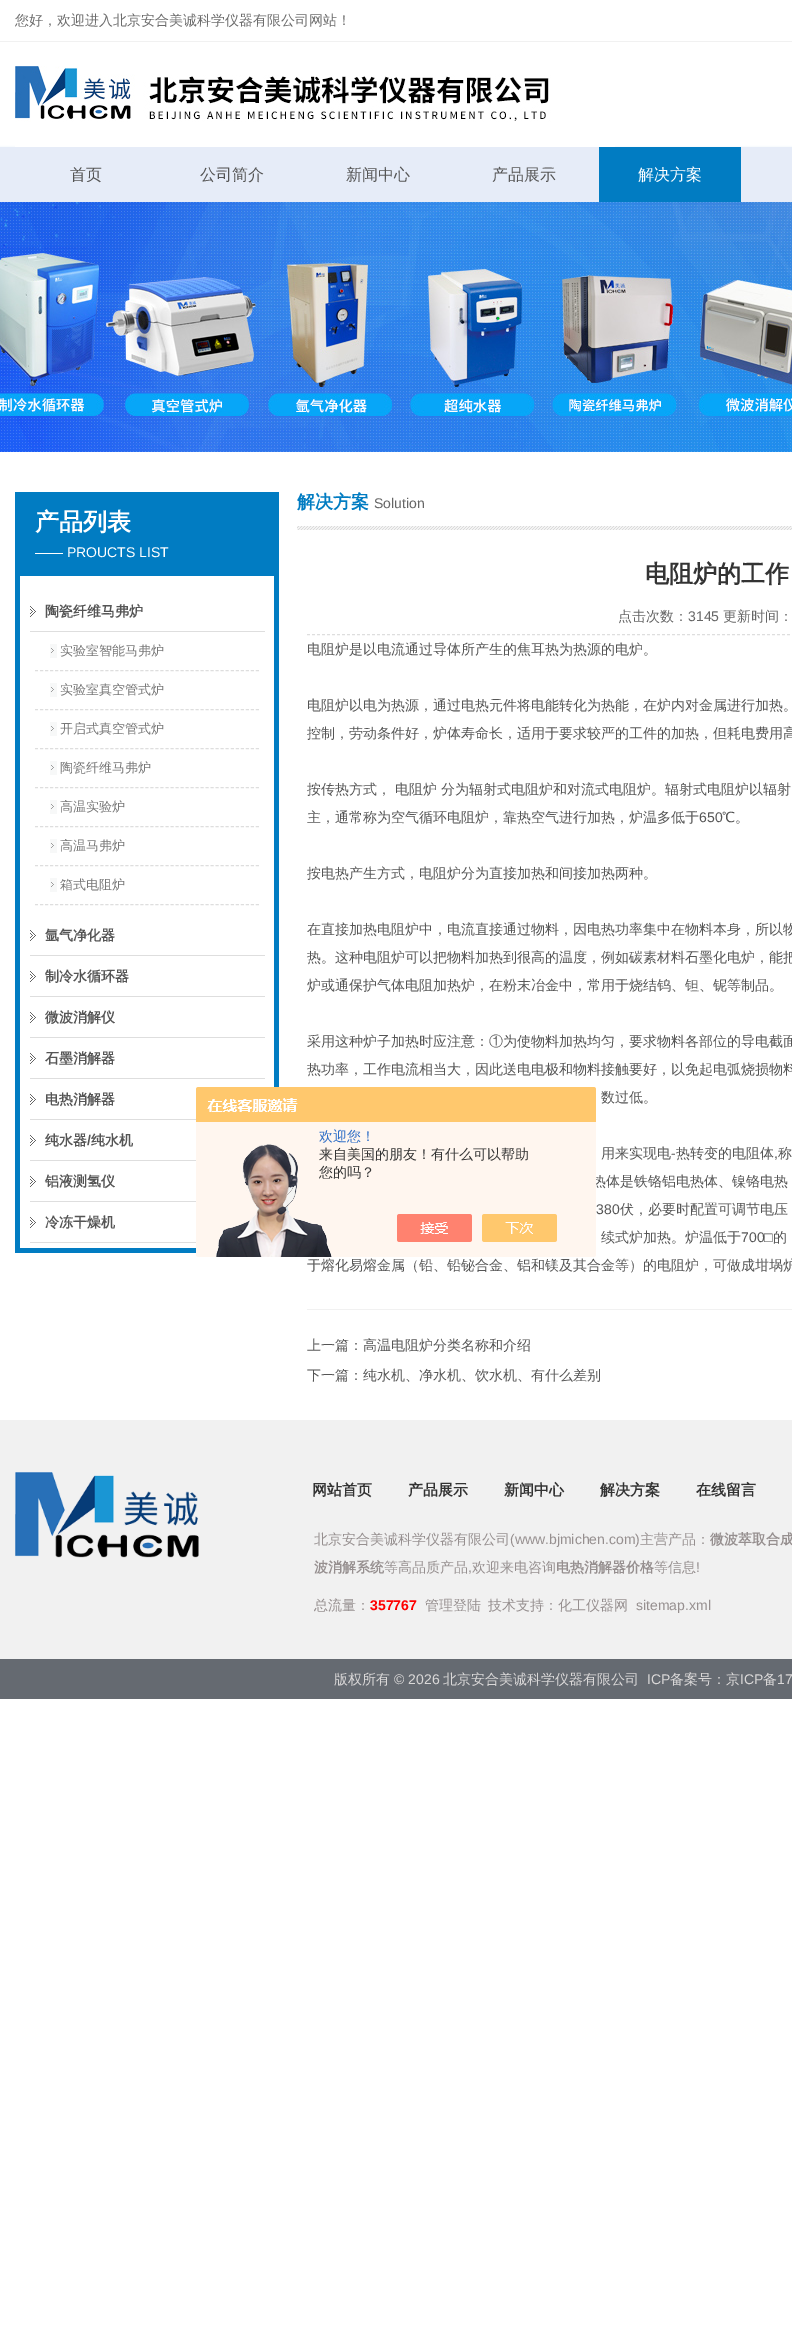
%!PS-Adobe-3.0
%%BoundingBox: 0 0 792 2344
%%LanguageLevel: 3
%%Pages: 1
%%EndComments
%%BeginProlog
/setink { dup -16 bitshift 255 div exch dup -8 bitshift 255 and 255 div exch 255 and 255 div setrgbcolor } def
/usefont { [ exch dup neg 0 0 3 -1 roll 0 0 ] selectfont } def
/setalpha { dup .setfillconstantalpha .setstrokeconstantalpha } def
/rrect { 5 dict begin { /r /h /w /y /x } { exch def } forall
  x r add y moveto x w add y 2 copy h add r arct x w add y h add x 1 index r arct
  x y h add x y r arct x y 2 copy exch w add exch r arct closepath end } def
/softshadow { 12 dict begin { /a /b /q /h /w /y /x } { exch def } forall gsave /was 0 def
  9 -2 -9 { dup b mul 4 div /e exch def 1 sub .425 mul 2.718 exch exp 1 add a .99 .min exch div /now exch def
    1 1 now sub 1 was sub div sub setalpha /was now def
    w h .min e 2 mul add 0 gt { x e sub y e sub w e 2 mul add h e 2 mul add
      q e add b .6 mul add w h .min 2 div e add .min 0 .max rrect fill } if } for grestore end } def
/drawimage { 5 dict begin { /h /w /y /x /name } { exch def } forall
  gsave x y translate w h scale
  w h 8 [w 0 0 h 0 0] name (r) file false 3 colorimage grestore end } def
%%EndProlog
%%BeginSetup
<< /PageSize [792 2344] /PageUsesTransparency true >> setpagedevice
%%EndSetup
%%Page: 1 1
0 .pushpdf14devicefilter
0 2344 translate 1 -1 scale
4 setmiterlimit
16#FFFFFF setink
0 0 792 2344 rectfill
16#F1F1F1 setink
0 41 792 1 rectfill
/WenQuanYiZenHei-Medium 14 usefont
16#6C6C6C setink
15 25 moveto (您好，欢迎进入北京安合美诚科学仪器有限公司网站！) show
16#89BCEB setink
0 149 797 55 0 1.5 1 softshadow
(img1.raw) 15 66 600 81 drawimage
16#E6ECF8 setink
0 147 792 55 rectfill
/WenQuanYiZenHei-Medium 16 usefont
16#555555 setink
[
    [(首页) 70 180]
    [(公司简介) 200 180]
    [(新闻中心) 346 180]
    [(产品展示) 492 180]
] { aload pop moveto show } forall
16#017CC2 setink
599 147 142 55 rectfill
16#FFFFFF setink
638 180 moveto (解决方案) show
(img2.raw) 0 202 792 250 drawimage
16#017CC2 setink
15 492 264 84 rectfill
/WenQuanYiZenHei-Bold 24 usefont
16#FFFFFF setink
35 530 moveto (产品列表) show
/LiberationSans-Regular 14 usefont
35 557 moveto (—— PROUCTS LIST) show
[
    [274 576 5 511 16#017CC2]
    [15 1248 181 5 16#017CC2]
    [15 576 5 677 16#017CC2]
] { aload pop setink rectfill } forall
(img3.raw) 30 606 6 11 drawimage
16#DEDEDE setink
30 631 235 1 rectfill
/WenQuanYiZenHei-Bold 14 usefont
16#555555 setink
45 616 moveto (陶瓷纤维马弗炉) show
16#DEDEDE setink
[3 2.02] 0 setdash
35 670.5 moveto 259 670.5 lineto stroke
(img4.raw) 50 644 7 14 drawimage
/WenQuanYiZenHei-Medium 13 usefont
16#777777 setink
60 655 moveto (实验室智能马弗炉) show
16#DEDEDE setink
35 709.5 moveto 259 709.5 lineto stroke
(img4.raw) 50 683 7 14 drawimage
16#777777 setink
60 694 moveto (实验室真空管式炉) show
16#DEDEDE setink
35 748.5 moveto 259 748.5 lineto stroke
(img4.raw) 50 722 7 14 drawimage
16#777777 setink
60 733 moveto (开启式真空管式炉) show
16#DEDEDE setink
35 787.5 moveto 259 787.5 lineto stroke
(img4.raw) 50 761 7 14 drawimage
16#777777 setink
60 772 moveto (陶瓷纤维马弗炉) show
16#DEDEDE setink
35 826.5 moveto 259 826.5 lineto stroke
(img4.raw) 50 800 7 14 drawimage
16#777777 setink
60 811 moveto (高温实验炉) show
16#DEDEDE setink
35 865.5 moveto 259 865.5 lineto stroke
(img4.raw) 50 839 7 14 drawimage
16#777777 setink
60 850 moveto (高温马弗炉) show
16#DEDEDE setink
35 904.5 moveto 259 904.5 lineto stroke
(img4.raw) 50 878 7 14 drawimage
16#777777 setink
60 889 moveto (箱式电阻炉) show
(img3.raw) 30 930 6 11 drawimage
16#DEDEDE setink
30 955 235 1 rectfill
/WenQuanYiZenHei-Bold 14 usefont
16#555555 setink
45 940 moveto (氩气净化器) show
(img3.raw) 30 971 6 11 drawimage
16#DEDEDE setink
30 996 235 1 rectfill
16#555555 setink
45 981 moveto (制冷水循环器) show
(img3.raw) 30 1012 6 11 drawimage
16#DEDEDE setink
30 1037 235 1 rectfill
16#555555 setink
45 1022 moveto (微波消解仪) show
(img3.raw) 30 1053 6 11 drawimage
16#DEDEDE setink
30 1078 235 1 rectfill
16#555555 setink
45 1063 moveto (石墨消解器) show
(img3.raw) 30 1094 6 11 drawimage
16#DEDEDE setink
30 1119 166 1 rectfill
16#555555 setink
45 1104 moveto (电热消解器) show
(img3.raw) 30 1135 6 11 drawimage
16#DEDEDE setink
30 1160 166 1 rectfill
16#555555 setink
45 1145 moveto (纯水器) show
/LiberationSans-Bold 14 usefont
87 1145 moveto (/) show
/WenQuanYiZenHei-Bold 14 usefont
91 1145 moveto (纯水机) show
(img3.raw) 30 1176 6 11 drawimage
16#DEDEDE setink
30 1201 166 1 rectfill
16#555555 setink
45 1186 moveto (铝液测氢仪) show
(img3.raw) 30 1217 6 11 drawimage
16#DEDEDE setink
30 1242 166 1 rectfill
16#555555 setink
45 1227 moveto (冷冻干燥机) show
(img5.raw) 297 526 495 4 drawimage
/WenQuanYiZenHei-Bold 18 usefont
16#017CC2 setink
297 508 moveto (解决方案) show
/LiberationSans-Regular 14 usefont
16#666666 setink
374 508 moveto (Solution) show
/WenQuanYiZenHei-Bold 24 usefont
16#333333 setink
645 582 moveto (电阻炉的工作) show
16#DEDEDE setink
[3 2] 0 setdash
307 634.5 moveto 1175 634.5 lineto stroke
/WenQuanYiZenHei-Medium 14 usefont
16#666666 setink
618 621 moveto (点击次数：) show
/LiberationSans-Regular 14 usefont
688 621 moveto (3145) show
/WenQuanYiZenHei-Medium 14 usefont
723 621 moveto (更新时间：) show
16#555555 setink
[
    [(电阻炉是以电流通过导体所产生的焦耳热为热源的电炉。) 307 654]
    [(电阻炉以电为热源，通过电热元件将电能转化为热能，在炉内对金属进行加热。) 307 710]
    [(控制，劳动条件好，炉体寿命长，适用于要求较严的工件的加热，但耗电费用高) 307 738]
    [(按传热方式， 电阻炉 分为辐射式电阻炉和对流式电阻炉。辐射式电阻炉以辐射) 307 794]
    [(主，通常称为空气循环电阻炉，靠热空气进行加热，炉温多低于) 307 822]
] { aload pop moveto show } forall
/LiberationSans-Regular 14 usefont
699 822 moveto (650) show
/WenQuanYiZenHei-Medium 14 usefont
[
    [(℃。) 722 822]
    [(按电热产生方式，电阻炉分为直接加热和间接加热两种。) 307 878]
    [(在直接加热电阻炉中，电流直接通过物料，因电热功率集中在物料本身，所以物) 307 934]
    [(热。这种电阻炉可以把物料加热到很高的温度，例如碳素材料石墨化电炉，能把) 307 962]
    [(炉或通保护气体电阻加热炉，在粉末冶金中，常用于烧结钨、钽、铌等制品。) 307 990]
    [(采用这种炉子加热时应注意：①为使物料加热均匀，要求物料各部位的导电截面) 307 1046]
    [(热功率，工作电流相当大，因此送电电极和物料接触要好，以免起电弧烧损物料) 307 1074]
    [(数过低。) 601 1102]
    [(用来实现电) 601 1158]
] { aload pop moveto show } forall
/LiberationSans-Regular 14 usefont
671 1158 moveto (-) show
/WenQuanYiZenHei-Medium 14 usefont
676 1158 moveto (热转变的电阻体) show
778 1158 moveto (称) show
/LiberationSans-Regular 14 usefont
774 1158 moveto (,) show
/WenQuanYiZenHei-Medium 14 usefont
592 1186 moveto (热体是铁铬铝电热体、镍铬电热) show
/LiberationSans-Regular 14 usefont
596 1214 moveto (380) show
/WenQuanYiZenHei-Medium 14 usefont
620 1214 moveto (伏，必要时配置可调节电压) show
601 1242 moveto (续式炉加热。炉温低于) show
/LiberationSans-Regular 14 usefont
741 1242 moveto (700□) show
/WenQuanYiZenHei-Medium 14 usefont
773 1242 moveto (的) show
307 1270 moveto (于熔化易熔金属（铅、铅铋合金、铝和镁及其合金等）的电阻炉，可做成坩埚炉) show
16#F1F1F1 setink
307 1309 485 1 rectfill
16#555555 setink
307 1350 moveto (上一篇：高温电阻炉分类名称和介绍) show
307 1380 moveto (下一篇：纯水机、净水机、饮水机、有什么差别) show
(img6.raw) 196 1087 400 170 drawimage
16#2E6EC6 setink
319 1141 moveto (欢迎您！) show
16#333333 setink
319 1159 moveto (来自美国的朋友！有什么可以帮助) show
319 1177 moveto (您的吗？) show
16#F1F1F1 setink
0 1420 792 239 rectfill
(img7.raw) 15 1472 184 86 drawimage
/WenQuanYiZenHei-Bold 15 usefont
16#333333 setink
[
    [(网站首页) 312 1495]
    [(产品展示) 408 1495]
    [(新闻中心) 504 1495]
    [(解决方案) 600 1495]
    [(在线留言) 696 1495]
] { aload pop moveto show } forall
/WenQuanYiZenHei-Medium 14 usefont
16#968F8F setink
314 1544 moveto (北京安合美诚科学仪器有限公司) show
/LiberationSans-Regular 14 usefont
510 1544 moveto (\(www.bjmichen.com\)) show
/WenQuanYiZenHei-Medium 14 usefont
640 1544 moveto (主营产品：) show
/WenQuanYiZenHei-Bold 14 usefont
710 1544 moveto (微波萃取合成) show
314 1572 moveto (波消解系统) show
/WenQuanYiZenHei-Medium 14 usefont
384 1572 moveto (等高品质产品) show
/LiberationSans-Regular 14 usefont
468 1572 moveto (,) show
/WenQuanYiZenHei-Medium 14 usefont
472 1572 moveto (欢迎来电咨询) show
/WenQuanYiZenHei-Bold 14 usefont
556 1572 moveto (电热消解器价格) show
/WenQuanYiZenHei-Medium 14 usefont
654 1572 moveto (等信息) show
/LiberationSans-Regular 14 usefont
696 1572 moveto (!) show
/WenQuanYiZenHei-Medium 14 usefont
314 1610 moveto (总流量：) show
/LiberationSans-Bold 14 usefont
16#FF0000 setink
370 1610 moveto (357767) show
/WenQuanYiZenHei-Medium 14 usefont
16#968F8F setink
425 1610 moveto (管理登陆) show
488 1610 moveto (技术支持：化工仪器网) show
/LiberationSans-Regular 14 usefont
636 1610 moveto (sitemap.xml) show
16#656A71 setink
0 1659 792 40 rectfill
/WenQuanYiZenHei-Medium 14 usefont
16#DAD8D8 setink
334 1684 moveto (版权所有) show
/LiberationSans-Regular 14 usefont
394 1684 moveto (© 2026) show
/WenQuanYiZenHei-Medium 14 usefont
443 1684 moveto (北京安合美诚科学仪器有限公司) show
/LiberationSans-Regular 14 usefont
647 1684 moveto (ICP) show
/WenQuanYiZenHei-Medium 14 usefont
670 1684 moveto (备案号：京) show
/LiberationSans-Regular 14 usefont
740 1684 moveto (ICP) show
/WenQuanYiZenHei-Medium 14 usefont
763 1684 moveto (备) show
/LiberationSans-Regular 14 usefont
777 1684 moveto (17) show
.poppdf14devicefilter showpage
%%EOF
